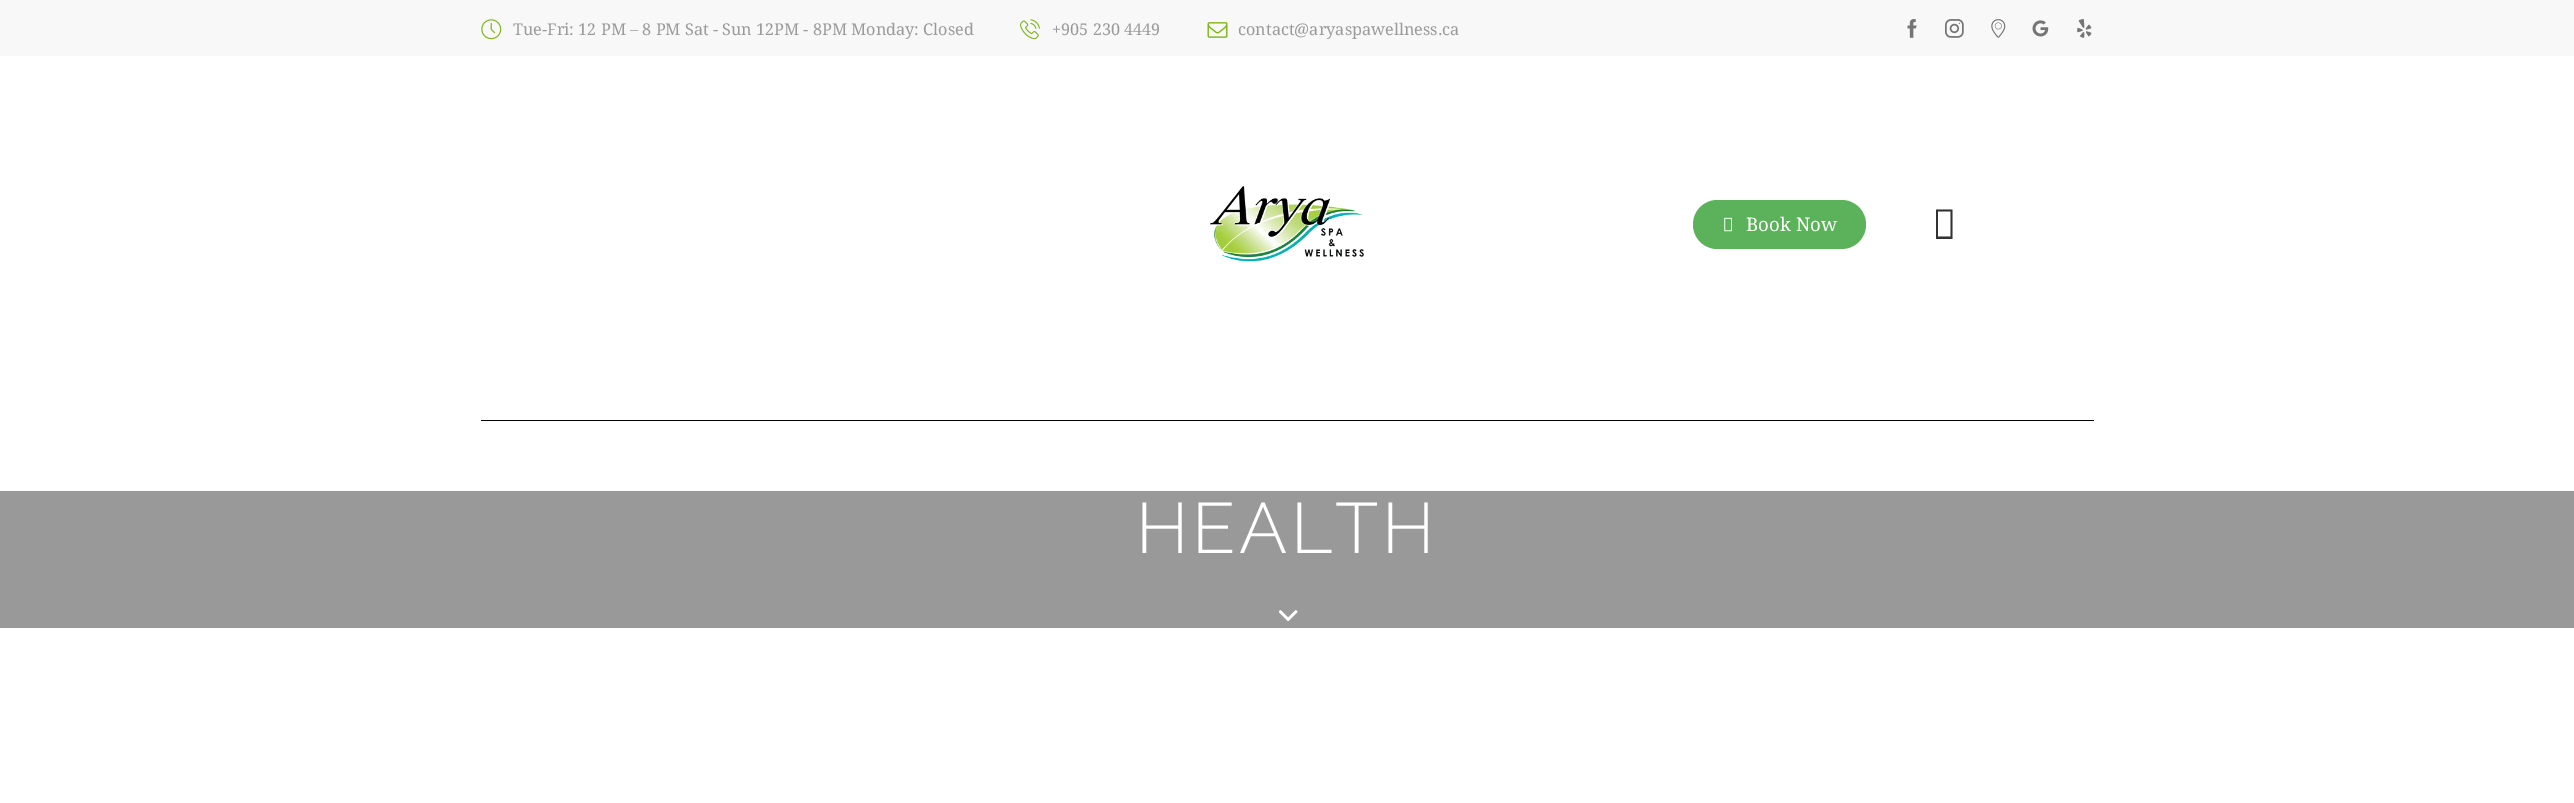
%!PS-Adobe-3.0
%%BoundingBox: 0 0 2574 803
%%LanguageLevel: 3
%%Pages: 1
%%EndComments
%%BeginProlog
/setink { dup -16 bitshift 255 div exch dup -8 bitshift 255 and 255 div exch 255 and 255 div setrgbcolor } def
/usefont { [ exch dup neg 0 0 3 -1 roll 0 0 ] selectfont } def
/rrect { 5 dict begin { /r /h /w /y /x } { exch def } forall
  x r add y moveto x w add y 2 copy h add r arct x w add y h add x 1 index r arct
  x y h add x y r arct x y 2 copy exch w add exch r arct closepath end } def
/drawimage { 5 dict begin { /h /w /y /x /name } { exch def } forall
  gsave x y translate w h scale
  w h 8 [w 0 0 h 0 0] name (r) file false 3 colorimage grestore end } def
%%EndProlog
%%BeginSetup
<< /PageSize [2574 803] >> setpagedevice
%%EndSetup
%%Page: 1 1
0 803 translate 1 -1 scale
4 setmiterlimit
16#FFFFFF setink
0 0 2574 803 rectfill
16#F8F8F8 setink
0 0 2574 56 rectfill
(img1.raw) 481 19 21 21 drawimage
/DroidSerif-Regular 16.25 usefont
16#9A9A9A setink
513 35 moveto (Tue-Fri: 12 PM – 8 PM Sat - Sun 12PM - 8PM Monday: Closed) show
(img2.raw) 1020 19 20 21 drawimage
1052 35 moveto (+905 230 4449) show
(img3.raw) 1207 22 21 16 drawimage
1238 35 moveto (contact@aryaspawellness.ca) show
(img4.raw) 1907 19 10 19 drawimage
(img5.raw) 1945 19 19 19 drawimage
(img6.raw) 1991 19 15 19 drawimage
(img7.raw) 2032 20 17 17 drawimage
(img8.raw) 2077 19 15 19 drawimage
(img9.raw) 1210 186 154 76 drawimage
16#5CB25A setink
1693 200 173 49 24.5 rrect fill
(img10.raw) 1724 217 8 15 drawimage
/DroidSerif-Regular 18.75 usefont
16#FFFFFF setink
1746 231 moveto (Book Now) show
16#323232 setink
1936 239 moveto 1936 209.5 lineto 1952.5 209.5 lineto 1952.5 239 lineto closepath 1938 236.5 moveto 1950.5 236.5 lineto 1950.5 211.5 lineto 1938 211.5 lineto closepath fill
16#000000 setink
481 420 1613 1 rectfill
16#999999 setink
0 491 2574 137 rectfill
/Raleway-Light 71.25 usefont
16#FFFFFF setink
1136 553 moveto 3.5 0 (HEALTH) ashow
(img11.raw) 1279 610 19 12 drawimage
showpage
%%EOF
